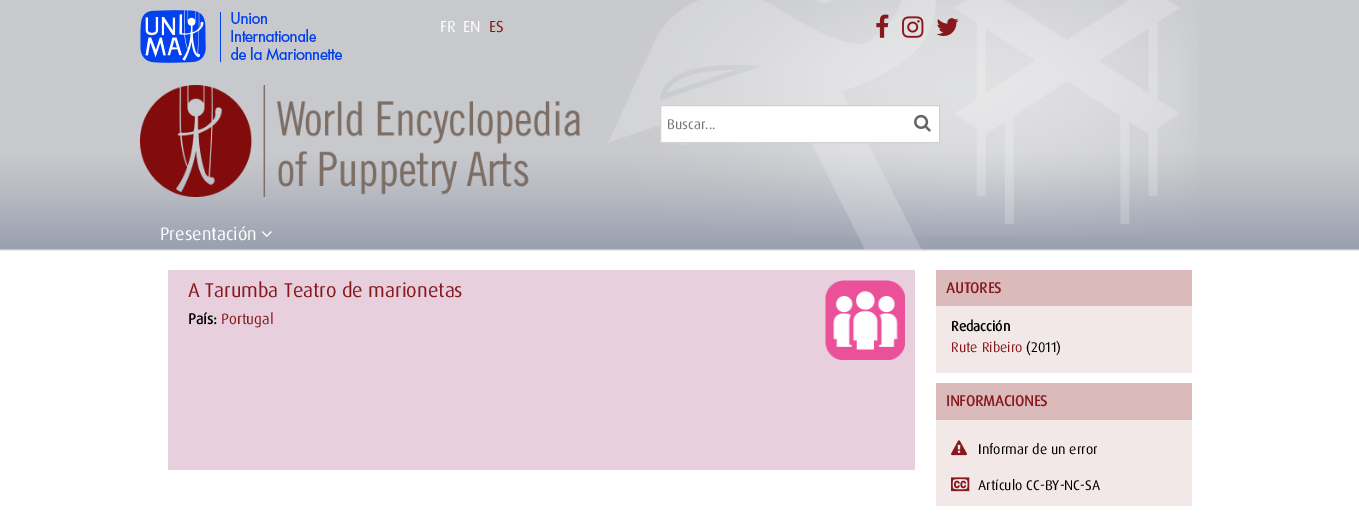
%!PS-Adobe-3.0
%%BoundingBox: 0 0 1359 519
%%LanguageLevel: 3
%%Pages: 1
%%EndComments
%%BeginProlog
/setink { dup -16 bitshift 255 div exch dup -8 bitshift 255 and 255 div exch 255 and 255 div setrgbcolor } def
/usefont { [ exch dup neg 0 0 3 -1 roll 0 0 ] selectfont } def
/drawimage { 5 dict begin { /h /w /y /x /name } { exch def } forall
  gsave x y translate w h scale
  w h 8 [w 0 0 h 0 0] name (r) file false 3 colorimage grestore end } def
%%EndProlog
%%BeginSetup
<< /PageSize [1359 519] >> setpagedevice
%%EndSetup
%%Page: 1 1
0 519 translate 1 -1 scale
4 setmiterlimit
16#FFFFFF setink
0 0 1359 519 rectfill
16#E6E6E6 setink
0 250 1359 1 rectfill
(img1.raw) 0 0 1359 250 drawimage
(img2.raw) 140 10 202 53 drawimage
(img3.raw) 608 0 591 250 drawimage
/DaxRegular-Regular 16 usefont
16#FFFFFF setink
440 32 moveto (FR) show
463 32 moveto (EN) show
16#87191D setink
489 32 moveto (ES) show
(img4.raw) 876 14 13 24 drawimage
(img5.raw) 902 16 22 22 drawimage
(img6.raw) 936 18 23 18 drawimage
(img7.raw) 140 85 440 112 drawimage
16#FFFFFF setink
660.5 105.5 moveto 939.5 105.5 lineto 939.5 142.5 lineto 660.5 142.5 lineto closepath gsave fill grestore
16#D1D1D1 setink
stroke
/DaxRegular-Regular 14 usefont
16#757575 setink
667 129 moveto (Buscar...) show
(img8.raw) 914 114 17 18 drawimage
/DaxRegular-Regular 18 usefont
16#FFFFFF setink
160 240 moveto (Presentación) show
(img9.raw) 261 231 11 6 drawimage
16#E7CFDD setink
168 270 747 200 rectfill
/DaxRegular-Regular 20 usefont
16#87191D setink
188 297 moveto (A Tarumba Teatro de marionetas) show
(img10.raw) 825 280 80 80 drawimage
/DaxRegular-Bold 15 usefont
16#000000 setink
188 324 moveto (País:) show
/DaxRegular-Regular 15 usefont
16#87191D setink
221 324 moveto (Portugal) show
16#DBBABB setink
936 270 256 36 rectfill
/DaxRegular-Bold 15 usefont
16#87191D setink
946 293 moveto (AUTORES) show
16#F3E8E8 setink
936 306 256 67 rectfill
/DaxRegular-Bold 14 usefont
16#000000 setink
951 331 moveto (Redacción) show
/DaxRegular-Regular 14 usefont
16#87191D setink
951 352 moveto (Rute Ribeiro) show
16#000000 setink
1026 352 moveto (\(2011\)) show
16#DBBABB setink
936 383 256 37 rectfill
/DaxRegular-Bold 15 usefont
16#87191D setink
946 406 moveto (INFORMACIONES) show
16#F3E8E8 setink
936 420 256 86 rectfill
(img11.raw) 951 440 16 16 drawimage
/DaxRegular-Regular 14 usefont
16#000000 setink
978 454 moveto (Informar de un error) show
(img12.raw) 951 477 19 15 drawimage
978 490 moveto (Artículo CC-BY-NC-SA) show
showpage
%%EOF
